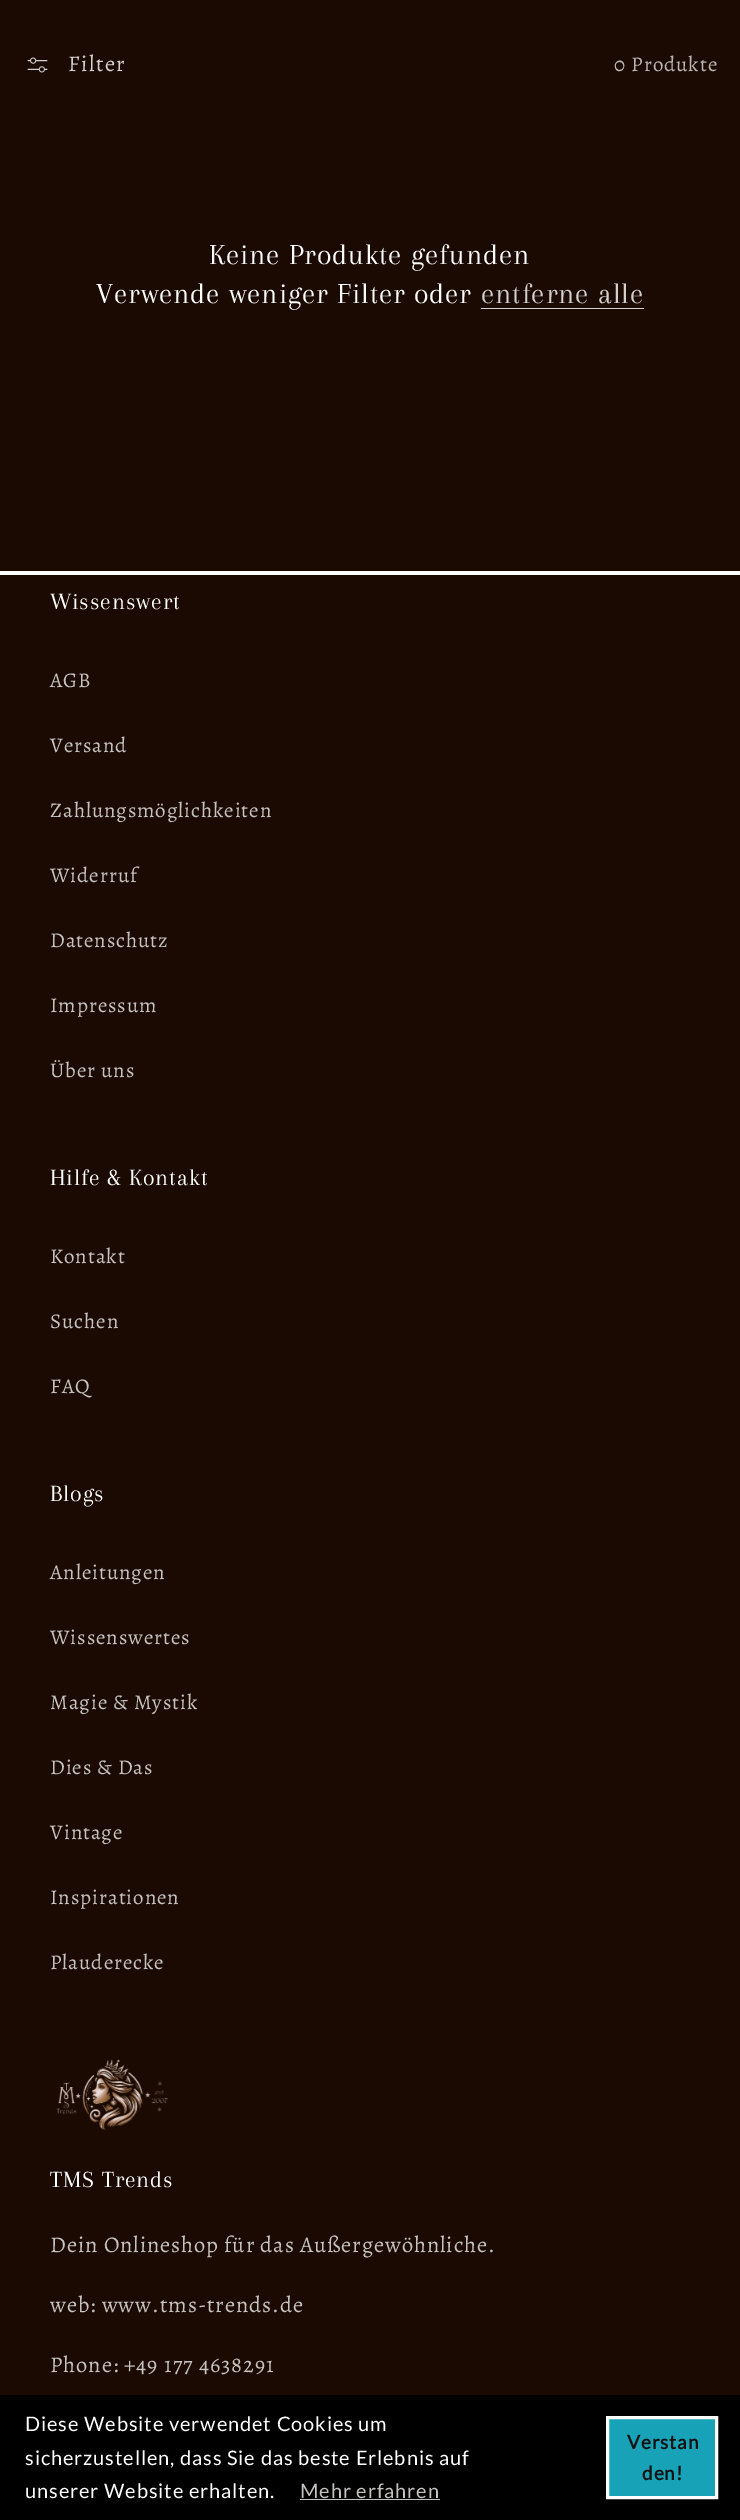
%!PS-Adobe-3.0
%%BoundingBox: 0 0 740 2520
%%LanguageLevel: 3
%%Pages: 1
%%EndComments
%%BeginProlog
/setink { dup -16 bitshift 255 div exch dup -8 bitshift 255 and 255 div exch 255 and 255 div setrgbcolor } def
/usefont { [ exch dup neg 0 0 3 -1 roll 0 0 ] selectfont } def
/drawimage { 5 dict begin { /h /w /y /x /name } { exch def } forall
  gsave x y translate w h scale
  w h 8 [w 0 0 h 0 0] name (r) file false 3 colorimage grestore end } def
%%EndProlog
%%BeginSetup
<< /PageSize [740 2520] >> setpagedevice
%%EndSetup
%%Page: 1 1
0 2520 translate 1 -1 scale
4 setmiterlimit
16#FFFFFF setink
0 0 740 2520 rectfill
16#1B0A01 setink
0 0 740 571 rectfill
(img1.raw) 27 57 21 16 drawimage
/Alegreya-Regular 22.5 usefont
16#D3D0CF setink
68 71 moveto 1.5 0 (Filter) ashow
/Alegreya-Regular 21 usefont
16#BBB6B3 setink
614 71 moveto 0.9 0 (0 Produkte) ashow
/Arapey-Regular 30 usefont
16#FFFFFF setink
209 264 moveto 0.9 0 (Keine Produkte gefunden) ashow
96 303 moveto 0.9 0 (Verwende weniger Filter oder) ashow
16#D3D0CF setink
481 303 moveto 0.9 0 (entferne alle) ashow
481 308 163 1 rectfill
16#1B0A01 setink
0 575 740 1820 rectfill
/Arapey-Regular 24 usefont
16#FFFFFF setink
50 609 moveto 0.9 0 (Wissenswert) ashow
/Alegreya-Regular 21 usefont
16#C6C2C0 setink
50 687 moveto 0.9 0 (AGB) ashow
50 752 moveto 0.9 0 (Versand) ashow
50 817 moveto 0.9 0 (Zahlungsmöglichkeiten) ashow
50 882 moveto 0.9 0 (Widerruf) ashow
50 947 moveto 0.9 0 (Datenschutz) ashow
50 1012 moveto 0.9 0 (Impressum) ashow
50 1077 moveto 0.9 0 (Über uns) ashow
/Arapey-Regular 24 usefont
16#FFFFFF setink
50 1185 moveto 0.9 0 (Hilfe & Kontakt) ashow
/Alegreya-Regular 21 usefont
16#C6C2C0 setink
50 1263 moveto 0.9 0 (Kontakt) ashow
50 1328 moveto 0.9 0 (Suchen) ashow
50 1393 moveto 0.9 0 (FAQ) ashow
/Arapey-Regular 24 usefont
16#FFFFFF setink
50 1501 moveto 0.9 0 (Blogs) ashow
/Alegreya-Regular 21 usefont
16#C6C2C0 setink
50 1579 moveto 0.9 0 (Anleitungen) ashow
50 1644 moveto 0.9 0 (Wissenswertes) ashow
50 1709 moveto 0.9 0 (Magie & Mystik) ashow
50 1774 moveto 0.9 0 (Dies & Das) ashow
50 1839 moveto 0.9 0 (Vintage) ashow
50 1904 moveto 0.9 0 (Inspirationen) ashow
50 1969 moveto 0.9 0 (Plauderecke) ashow
(img2.raw) 56 2059 113 71 drawimage
/Arapey-Regular 24 usefont
16#FFFFFF setink
50 2187 moveto 0.9 0 (TMS Trends) ashow
/Alegreya-Regular 22.5 usefont
16#C6C2C0 setink
50 2252 moveto 0.9 0 (Dein Onlineshop für das Außergewöhnliche.) ashow
50 2312 moveto 0.9 0 (web: www.tms-trends.de) ashow
50 2372 moveto 0.9 0 (Phone: +49 177 4638291) ashow
16#000000 setink
0 2395 740 125 rectfill
/Lato-Regular 20 usefont
16#FFFFFF setink
25 2431 moveto 0.9 0 (Diese Website verwendet Cookies um) ashow
25 2465 moveto 0.9 0 (sicherzustellen, dass Sie das beste Erlebnis auf) ashow
25 2498 moveto 0.9 0 (unserer Website erhalten.) ashow
16#C6C2C0 setink
300 2498 moveto 0.9 0 (Mehr erfahren) ashow
16#C2C2C2 setink
300 2499 140 1 rectfill
16#17A2B8 setink
607.5 2417.5 moveto 716.5 2417.5 lineto 716.5 2497.5 lineto 607.5 2497.5 lineto closepath gsave fill grestore
16#FFFFFF setink
3 setlinewidth
stroke
/Lato-Bold 19 usefont
16#121212 setink
627 2449 moveto 0.9 0 (Verstan) ashow
642 2480 moveto 0.9 0 (den!) ashow
showpage
%%EOF
